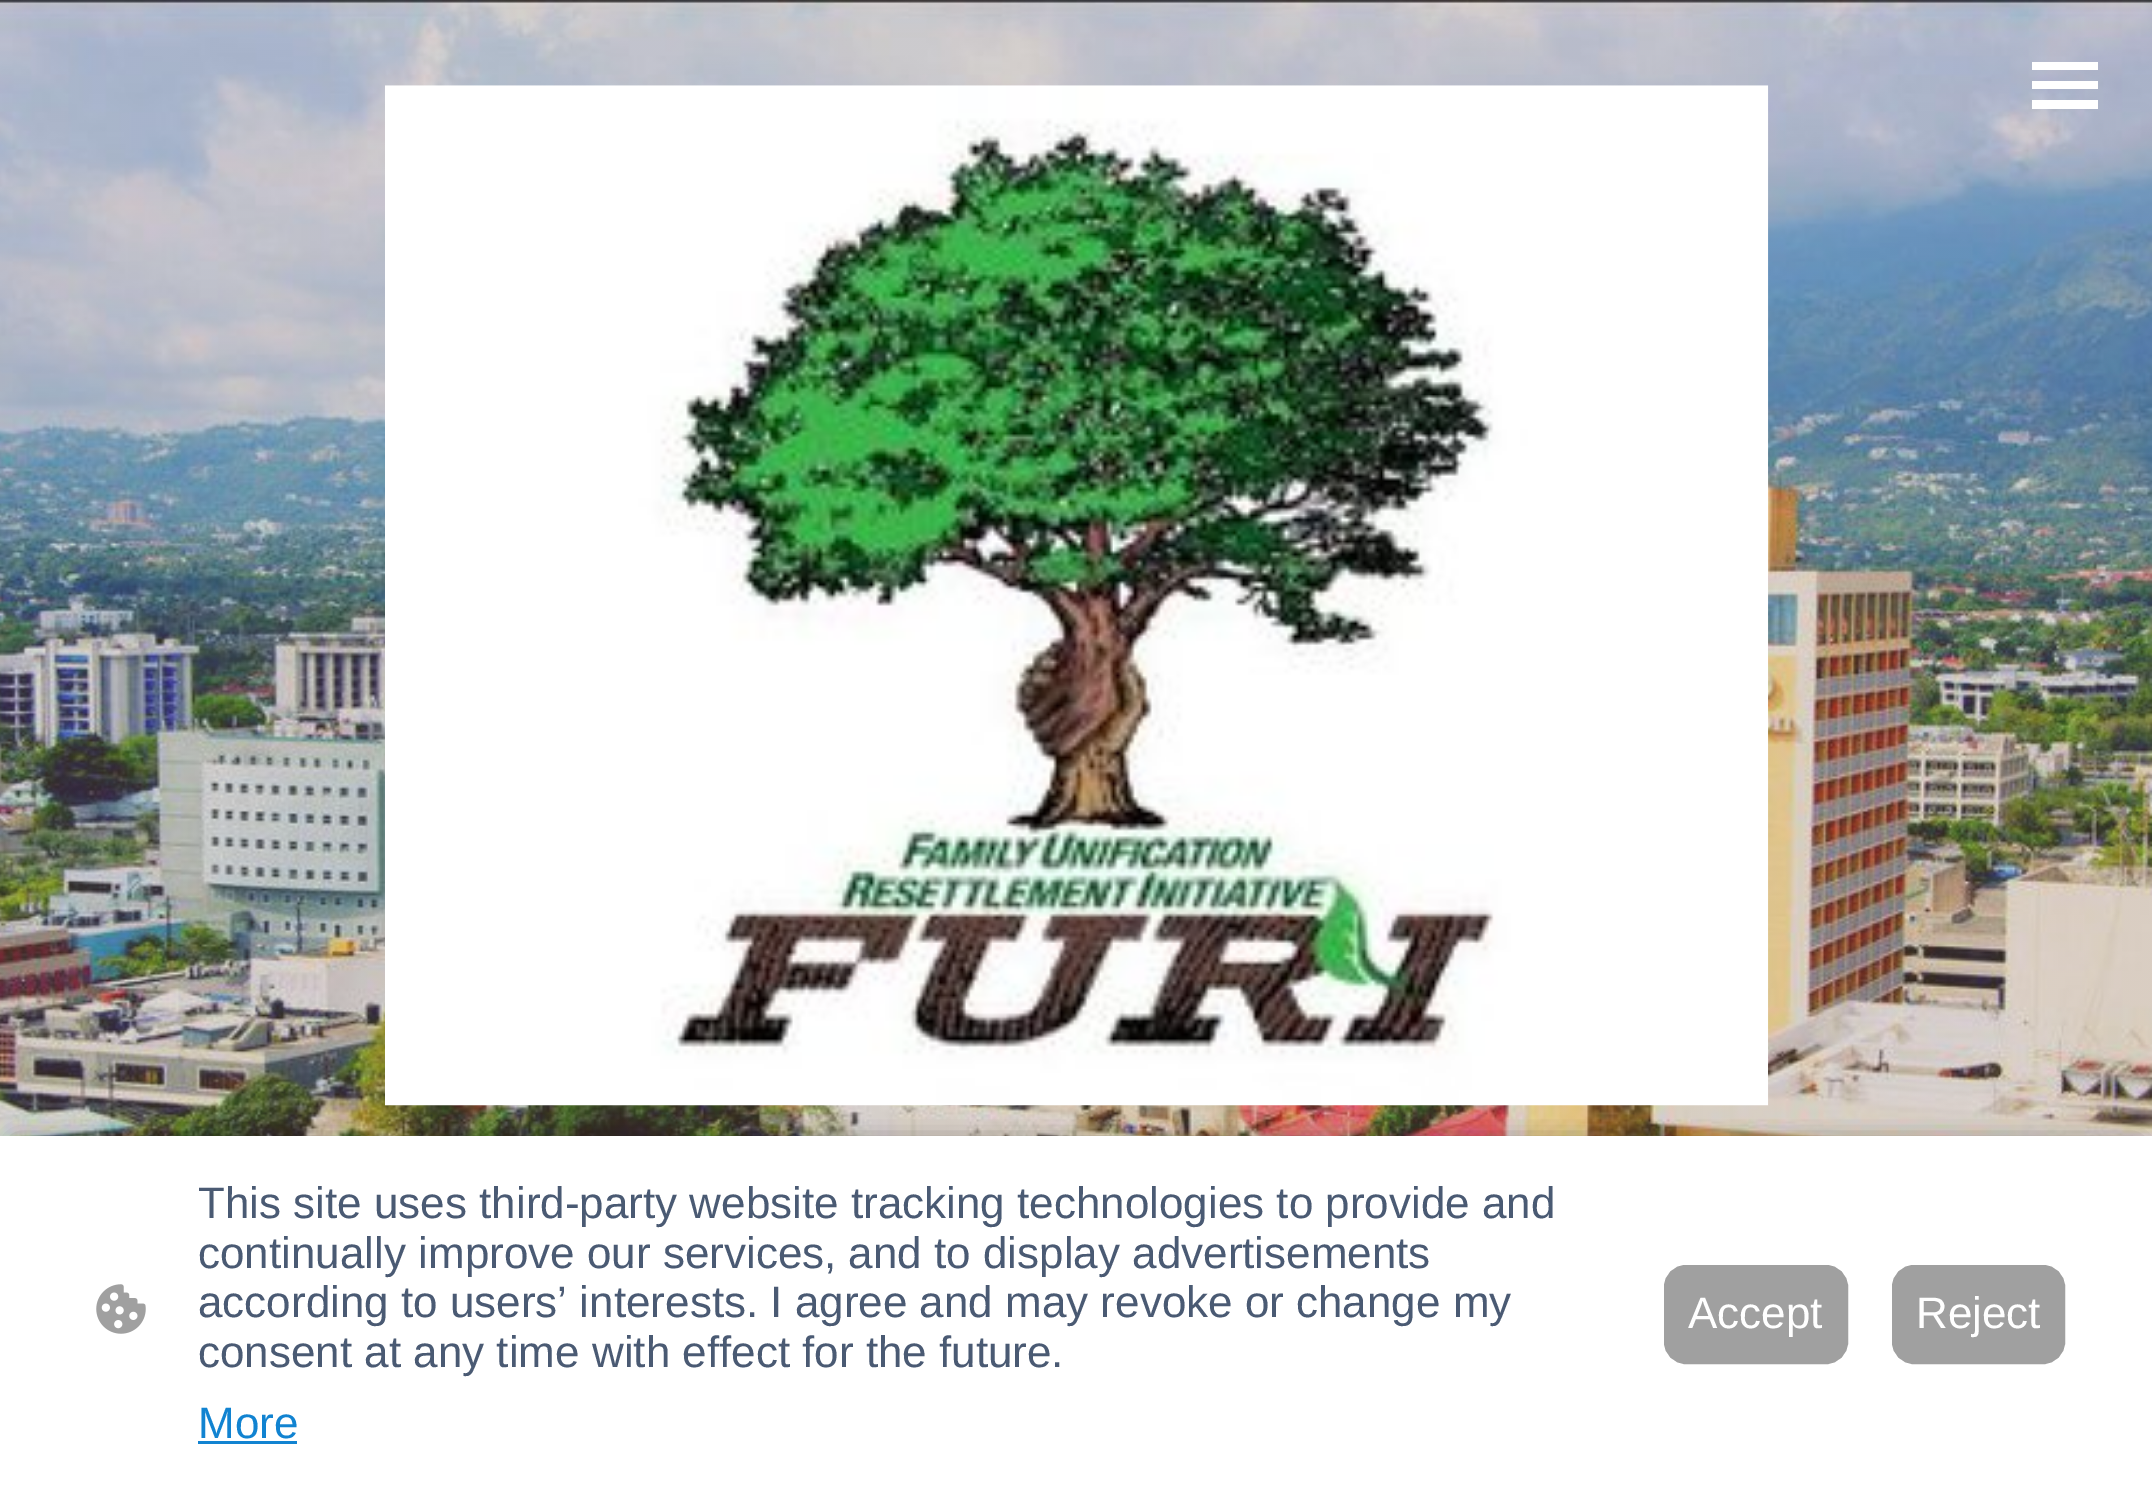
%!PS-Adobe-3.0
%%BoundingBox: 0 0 2152 1493
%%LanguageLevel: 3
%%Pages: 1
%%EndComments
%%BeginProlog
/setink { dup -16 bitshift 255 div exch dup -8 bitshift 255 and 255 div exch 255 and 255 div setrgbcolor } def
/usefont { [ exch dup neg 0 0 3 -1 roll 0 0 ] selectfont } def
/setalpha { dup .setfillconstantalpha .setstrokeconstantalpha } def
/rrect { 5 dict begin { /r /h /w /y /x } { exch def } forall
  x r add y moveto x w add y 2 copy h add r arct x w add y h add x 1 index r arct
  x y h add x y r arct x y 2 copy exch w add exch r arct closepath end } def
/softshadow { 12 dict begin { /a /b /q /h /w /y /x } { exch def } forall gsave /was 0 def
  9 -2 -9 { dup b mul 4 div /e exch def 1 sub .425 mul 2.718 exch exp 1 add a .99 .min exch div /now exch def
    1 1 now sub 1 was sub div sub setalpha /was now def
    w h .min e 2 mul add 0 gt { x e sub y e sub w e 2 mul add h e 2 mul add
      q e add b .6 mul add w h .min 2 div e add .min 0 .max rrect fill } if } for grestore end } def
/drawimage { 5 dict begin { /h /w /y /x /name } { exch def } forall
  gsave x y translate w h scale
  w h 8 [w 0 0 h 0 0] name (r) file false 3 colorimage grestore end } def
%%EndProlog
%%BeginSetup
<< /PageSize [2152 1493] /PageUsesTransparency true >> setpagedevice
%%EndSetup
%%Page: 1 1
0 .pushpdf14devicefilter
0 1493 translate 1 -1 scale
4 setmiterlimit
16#FFFFFF setink
0 0 2152 1493 rectfill
(img1.raw) 0 0 2152 1136 drawimage
(img2.raw) 385 85 1384 1021 drawimage
[
    [2032 62 66 8 16#FFFFFF]
    [2032 81 66 8 16#FFFFFF]
    [2032 100 66 9 16#FFFFFF]
] { aload pop setink rectfill } forall
16#000000 setink
17 1144 2120 325 0 11 0.63 softshadow
16#FFFFFF setink
0 1136 2152 357 rectfill
(img3.raw) 96 1284 50 50 drawimage
/LiberationSans-Regular 44 usefont
16#4A5A73 setink
[
    [(This site uses third-party website tracking technologies to provide and) 198 1218]
    [(continually improve our services, and to display advertisements) 198 1268]
    [(according to users’ interests. I agree and may revoke or change my) 198 1317]
    [(consent at any time with effect for the future.) 198 1367]
] { aload pop moveto show } forall
16#1183D1 setink
198 1438 moveto (More) show
198 1441 99 3 rectfill
16#A0A0A0 setink
1665.5 1266.5 181 96 20.5 rrect gsave fill grestore
3 setlinewidth
stroke
16#FFFFFF setink
1688 1328 moveto (Accept) show
16#A0A0A0 setink
1893.5 1266.5 170 96 20.5 rrect gsave fill grestore
stroke
16#FFFFFF setink
1916 1328 moveto (Reject) show
.poppdf14devicefilter showpage
%%EOF
